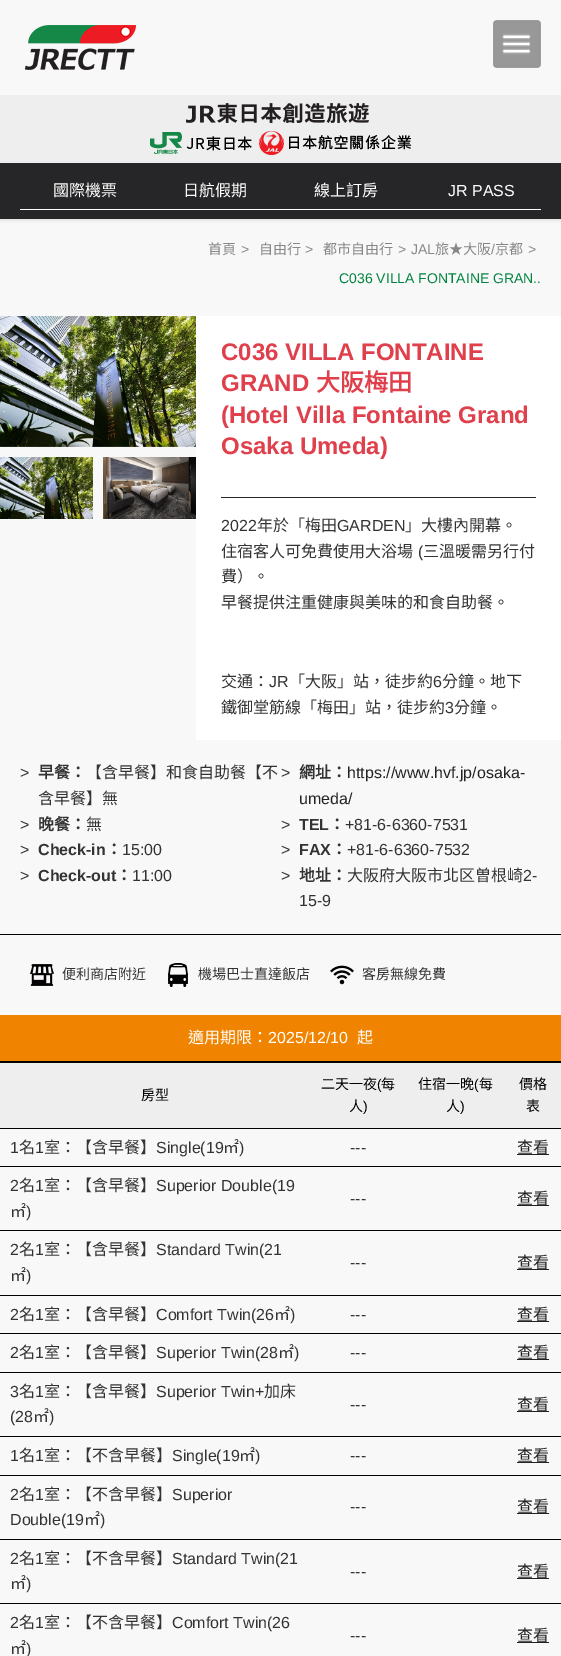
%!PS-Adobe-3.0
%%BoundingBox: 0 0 561 1656
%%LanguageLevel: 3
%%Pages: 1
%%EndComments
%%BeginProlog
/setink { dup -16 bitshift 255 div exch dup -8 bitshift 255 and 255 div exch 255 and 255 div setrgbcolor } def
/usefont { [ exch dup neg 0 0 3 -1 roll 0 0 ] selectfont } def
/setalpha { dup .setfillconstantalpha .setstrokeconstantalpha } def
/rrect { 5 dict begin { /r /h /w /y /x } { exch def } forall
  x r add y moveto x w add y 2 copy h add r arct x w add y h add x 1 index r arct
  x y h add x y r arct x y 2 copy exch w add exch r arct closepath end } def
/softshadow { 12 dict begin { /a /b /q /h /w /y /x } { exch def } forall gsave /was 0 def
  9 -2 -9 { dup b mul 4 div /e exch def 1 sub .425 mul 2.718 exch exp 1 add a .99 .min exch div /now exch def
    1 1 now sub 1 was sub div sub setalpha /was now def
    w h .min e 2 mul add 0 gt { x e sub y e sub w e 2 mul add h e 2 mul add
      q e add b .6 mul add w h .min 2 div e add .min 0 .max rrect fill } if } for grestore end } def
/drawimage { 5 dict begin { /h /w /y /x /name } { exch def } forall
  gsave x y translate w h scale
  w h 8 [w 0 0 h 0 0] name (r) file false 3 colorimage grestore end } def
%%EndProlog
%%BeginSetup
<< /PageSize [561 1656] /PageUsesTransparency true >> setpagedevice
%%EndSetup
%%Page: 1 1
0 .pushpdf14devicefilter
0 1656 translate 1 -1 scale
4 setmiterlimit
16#F8F8F8 setink
0 0 561 1656 rectfill
gsave
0 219 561 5 rectclip
16#CCCCCC setink
0 0 561 219 0 2.5 1 softshadow
grestore
(img1.raw) 25 25 111 45 drawimage
(img2.raw) 493 20 48 48 drawimage
16#EEEEEE setink
0 95 561 68 rectfill
(img3.raw) 150 103 261 52 drawimage
16#262628 setink
0 163 561 56 rectfill
16#FFFFFF setink
20 209 521 1 rectfill
/NotoSansCJKTC-Regular 16 usefont
[
    [(國際機票) 53 196]
    [(日航假期) 183 196]
    [(線上訂房) 314 196]
] { aload pop moveto show } forall
/LiberationSans-Regular 16 usefont
448 196 moveto (JR PASS) show
/NotoSansCJKTC-Regular 14 usefont
16#878787 setink
208 254 moveto (首頁) show
/LiberationSans-Regular 14 usefont
241 254 moveto (>) show
/NotoSansCJKTC-Regular 14 usefont
259 254 moveto (自由行) show
/LiberationSans-Regular 14 usefont
305 254 moveto (>) show
/NotoSansCJKTC-Regular 14 usefont
323 254 moveto (都市自由行) show
/LiberationSans-Regular 14 usefont
398 254 moveto (>) show
411 254 moveto (JAL) show
/NotoSansCJKTC-Regular 14 usefont
435 254 moveto (旅★大阪) show
/LiberationSans-Regular 14 usefont
491 254 moveto (/) show
/NotoSansCJKTC-Regular 14 usefont
495 254 moveto (京都) show
/LiberationSans-Regular 14 usefont
528 254 moveto (>) show
16#00833E setink
339 283 moveto (C036 VILLA FONTAINE GRAN..) show
(img4.raw) 0 316 196 131 drawimage
(img5.raw) 0 457 93 62 drawimage
(img6.raw) 103 457 93 62 drawimage
16#FFFFFF setink
196 316 365 424 rectfill
16#292929 setink
221 497 315 1 rectfill
/LiberationSans-Bold 24 usefont
16#DF404C setink
221 360 moveto (C036 VILLA FONTAINE) show
221 391 moveto (GRAND) show
/NotoSansCJKTC-Bold 24 usefont
316 391 moveto (大阪梅田) show
/LiberationSans-Bold 24 usefont
221 423 moveto (\(Hotel Villa Fontaine Grand) show
221 454 moveto (Osaka Umeda\)) show
/LiberationSans-Regular 16 usefont
16#333333 setink
221 531 moveto (2022) show
/NotoSansCJKTC-Regular 16 usefont
257 531 moveto (年於「梅田) show
/LiberationSans-Regular 16 usefont
337 531 moveto (GARDEN) show
/NotoSansCJKTC-Regular 16 usefont
405 531 moveto (」大樓內開幕。) show
221 557 moveto (住宿客人可免費使用大浴場) show
/LiberationSans-Regular 16 usefont
418 557 moveto (\() show
/NotoSansCJKTC-Regular 16 usefont
[
    [(三溫暖需另行付) 423 557]
    [(費）。) 221 582]
    [(早餐提供注重健康與美味的和食自助餐。) 221 608]
    [(交通：) 221 687]
] { aload pop moveto show } forall
/LiberationSans-Regular 16 usefont
269 687 moveto (JR) show
/NotoSansCJKTC-Regular 16 usefont
289 687 moveto (「大阪」站，徒步約) show
/LiberationSans-Regular 16 usefont
433 687 moveto (6) show
/NotoSansCJKTC-Regular 16 usefont
442 687 moveto (分鐘。地下) show
221 713 moveto (鐵御堂筋線「梅田」站，徒步約) show
/LiberationSans-Regular 16 usefont
445 713 moveto (3) show
/NotoSansCJKTC-Regular 16 usefont
454 713 moveto (分鐘。) show
/LiberationSans-Regular 16 usefont
20 778 moveto (>) show
/NotoSansCJKTC-Bold 16 usefont
38 778 moveto (早餐：) show
/NotoSansCJKTC-Regular 16 usefont
86 778 moveto (【含早餐】和食自助餐【不) show
38 804 moveto (含早餐】無) show
/LiberationSans-Regular 16 usefont
20 830 moveto (>) show
/NotoSansCJKTC-Bold 16 usefont
38 830 moveto (晚餐：) show
/NotoSansCJKTC-Regular 16 usefont
86 830 moveto (無) show
/LiberationSans-Regular 16 usefont
20 855 moveto (>) show
/LiberationSans-Bold 16 usefont
38 855 moveto (Check-in) show
/NotoSansCJKTC-Bold 16 usefont
106 855 moveto (：) show
/LiberationSans-Regular 16 usefont
122 855 moveto (15:00) show
20 881 moveto (>) show
/LiberationSans-Bold 16 usefont
38 881 moveto (Check-out) show
/NotoSansCJKTC-Bold 16 usefont
116 881 moveto (：) show
/LiberationSans-Regular 16 usefont
132 881 moveto (11:00) show
281 778 moveto (>) show
/NotoSansCJKTC-Bold 16 usefont
299 778 moveto (網址：) show
/LiberationSans-Regular 16 usefont
16#222222 setink
347 778 moveto (https://www.hvf.jp/osaka-) show
299 804 moveto (umeda/) show
16#333333 setink
281 830 moveto (>) show
/LiberationSans-Bold 16 usefont
299 830 moveto (TEL) show
/NotoSansCJKTC-Bold 16 usefont
329 830 moveto (：) show
/LiberationSans-Regular 16 usefont
345 830 moveto (+81-6-6360-7531) show
281 855 moveto (>) show
/LiberationSans-Bold 16 usefont
299 855 moveto (FAX) show
/NotoSansCJKTC-Bold 16 usefont
331 855 moveto (：) show
/LiberationSans-Regular 16 usefont
347 855 moveto (+81-6-6360-7532) show
281 881 moveto (>) show
/NotoSansCJKTC-Bold 16 usefont
299 881 moveto (地址：) show
/NotoSansCJKTC-Regular 16 usefont
347 881 moveto (大阪府大阪市北区曽根崎) show
/LiberationSans-Regular 16 usefont
523 881 moveto (2-) show
299 906 moveto (15-9) show
16#000000 setink
0 934 561 1 rectfill
(img7.raw) 30 964 24 22 drawimage
/NotoSansCJKTC-Regular 14 usefont
16#333333 setink
62 979 moveto (便利商店附近) show
(img8.raw) 168 963 20 24 drawimage
198 979 moveto (機場巴士直達飯店) show
(img9.raw) 330 965 24 20 drawimage
362 979 moveto (客房無線免費) show
16#F08400 setink
0 1015 561 46 rectfill
/NotoSansCJKTC-Regular 16 usefont
16#FFFFFF setink
188 1043 moveto (適用期限：) show
/LiberationSans-Regular 16 usefont
268 1043 moveto (2025/12/10) show
/NotoSansCJKTC-Regular 16 usefont
357 1043 moveto (起) show
16#EEEEEE setink
0 1063 561 65 rectfill
/NotoSansCJKTC-Regular 14 usefont
16#000000 setink
141 1100 moveto (房型) show
321 1089 moveto (二天一夜) show
/LiberationSans-Regular 14 usefont
377 1089 moveto (\() show
/NotoSansCJKTC-Regular 14 usefont
381 1089 moveto (每) show
349 1111 moveto (人) show
/LiberationSans-Regular 14 usefont
363 1111 moveto (\)) show
/NotoSansCJKTC-Regular 14 usefont
418 1089 moveto (住宿一晚) show
/LiberationSans-Regular 14 usefont
474 1089 moveto (\() show
/NotoSansCJKTC-Regular 14 usefont
479 1089 moveto (每) show
446 1111 moveto (人) show
/LiberationSans-Regular 14 usefont
460 1111 moveto (\)) show
0 1128 561 1 rectfill
0 1061 561 2 rectfill
/NotoSansCJKTC-Regular 14 usefont
519 1089 moveto (價格) show
526 1111 moveto (表) show
/LiberationSans-Regular 16 usefont
16#333333 setink
10 1153 moveto (1) show
/NotoSansCJKTC-Regular 16 usefont
19 1153 moveto (名) show
/LiberationSans-Regular 16 usefont
35 1153 moveto (1) show
/NotoSansCJKTC-Regular 16 usefont
44 1153 moveto (室：【含早餐】) show
/LiberationSans-Regular 16 usefont
156 1153 moveto (Single\(19) show
/NotoSansCJKTC-Regular 16 usefont
223 1153 moveto (㎡) show
/LiberationSans-Regular 16 usefont
239 1153 moveto (\)) show
350 1153 moveto (---) show
16#000000 setink
0 1166 561 1 rectfill
16#222222 setink
517 1154 32 1 rectfill
/NotoSansCJKTC-Regular 16 usefont
517 1153 moveto (查看) show
/LiberationSans-Regular 16 usefont
16#333333 setink
10 1191 moveto (2) show
/NotoSansCJKTC-Regular 16 usefont
19 1191 moveto (名) show
/LiberationSans-Regular 16 usefont
35 1191 moveto (1) show
/NotoSansCJKTC-Regular 16 usefont
44 1191 moveto (室：【含早餐】) show
/LiberationSans-Regular 16 usefont
156 1191 moveto (Superior Double\(19) show
/NotoSansCJKTC-Regular 16 usefont
10 1217 moveto (㎡) show
/LiberationSans-Regular 16 usefont
26 1217 moveto (\)) show
350 1204 moveto (---) show
16#000000 setink
0 1230 561 1 rectfill
16#222222 setink
517 1205 32 1 rectfill
/NotoSansCJKTC-Regular 16 usefont
517 1204 moveto (查看) show
/LiberationSans-Regular 16 usefont
16#333333 setink
10 1255 moveto (2) show
/NotoSansCJKTC-Regular 16 usefont
19 1255 moveto (名) show
/LiberationSans-Regular 16 usefont
35 1255 moveto (1) show
/NotoSansCJKTC-Regular 16 usefont
44 1255 moveto (室：【含早餐】) show
/LiberationSans-Regular 16 usefont
156 1255 moveto (Standard Twin\(21) show
/NotoSansCJKTC-Regular 16 usefont
10 1281 moveto (㎡) show
/LiberationSans-Regular 16 usefont
26 1281 moveto (\)) show
350 1268 moveto (---) show
16#000000 setink
0 1295 561 1 rectfill
16#222222 setink
517 1269 32 1 rectfill
/NotoSansCJKTC-Regular 16 usefont
517 1268 moveto (查看) show
/LiberationSans-Regular 16 usefont
16#333333 setink
10 1320 moveto (2) show
/NotoSansCJKTC-Regular 16 usefont
19 1320 moveto (名) show
/LiberationSans-Regular 16 usefont
35 1320 moveto (1) show
/NotoSansCJKTC-Regular 16 usefont
44 1320 moveto (室：【含早餐】) show
/LiberationSans-Regular 16 usefont
156 1320 moveto (Comfort Twin\(26) show
/NotoSansCJKTC-Regular 16 usefont
274 1320 moveto (㎡) show
/LiberationSans-Regular 16 usefont
290 1320 moveto (\)) show
350 1320 moveto (---) show
16#000000 setink
0 1333 561 1 rectfill
16#222222 setink
517 1321 32 1 rectfill
/NotoSansCJKTC-Regular 16 usefont
517 1320 moveto (查看) show
/LiberationSans-Regular 16 usefont
16#333333 setink
10 1358 moveto (2) show
/NotoSansCJKTC-Regular 16 usefont
19 1358 moveto (名) show
/LiberationSans-Regular 16 usefont
35 1358 moveto (1) show
/NotoSansCJKTC-Regular 16 usefont
44 1358 moveto (室：【含早餐】) show
/LiberationSans-Regular 16 usefont
156 1358 moveto (Superior Twin\(28) show
/NotoSansCJKTC-Regular 16 usefont
278 1358 moveto (㎡) show
/LiberationSans-Regular 16 usefont
294 1358 moveto (\)) show
350 1358 moveto (---) show
16#000000 setink
0 1372 561 1 rectfill
16#222222 setink
517 1359 32 1 rectfill
/NotoSansCJKTC-Regular 16 usefont
517 1358 moveto (查看) show
/LiberationSans-Regular 16 usefont
16#333333 setink
10 1397 moveto (3) show
/NotoSansCJKTC-Regular 16 usefont
19 1397 moveto (名) show
/LiberationSans-Regular 16 usefont
35 1397 moveto (1) show
/NotoSansCJKTC-Regular 16 usefont
44 1397 moveto (室：【含早餐】) show
/LiberationSans-Regular 16 usefont
156 1397 moveto (Superior Twin+) show
/NotoSansCJKTC-Regular 16 usefont
264 1397 moveto (加床) show
/LiberationSans-Regular 16 usefont
10 1422 moveto (\(28) show
/NotoSansCJKTC-Regular 16 usefont
33 1422 moveto (㎡) show
/LiberationSans-Regular 16 usefont
49 1422 moveto (\)) show
350 1410 moveto (---) show
16#000000 setink
0 1436 561 1 rectfill
16#222222 setink
517 1411 32 1 rectfill
/NotoSansCJKTC-Regular 16 usefont
517 1410 moveto (查看) show
/LiberationSans-Regular 16 usefont
16#333333 setink
10 1461 moveto (1) show
/NotoSansCJKTC-Regular 16 usefont
19 1461 moveto (名) show
/LiberationSans-Regular 16 usefont
35 1461 moveto (1) show
/NotoSansCJKTC-Regular 16 usefont
44 1461 moveto (室：【不含早餐】) show
/LiberationSans-Regular 16 usefont
172 1461 moveto (Single\(19) show
/NotoSansCJKTC-Regular 16 usefont
239 1461 moveto (㎡) show
/LiberationSans-Regular 16 usefont
255 1461 moveto (\)) show
350 1461 moveto (---) show
16#000000 setink
0 1475 561 1 rectfill
16#222222 setink
517 1462 32 1 rectfill
/NotoSansCJKTC-Regular 16 usefont
517 1461 moveto (查看) show
/LiberationSans-Regular 16 usefont
16#333333 setink
10 1500 moveto (2) show
/NotoSansCJKTC-Regular 16 usefont
19 1500 moveto (名) show
/LiberationSans-Regular 16 usefont
35 1500 moveto (1) show
/NotoSansCJKTC-Regular 16 usefont
44 1500 moveto (室：【不含早餐】) show
/LiberationSans-Regular 16 usefont
172 1500 moveto (Superior) show
10 1525 moveto (Double\(19) show
/NotoSansCJKTC-Regular 16 usefont
84 1525 moveto (㎡) show
/LiberationSans-Regular 16 usefont
100 1525 moveto (\)) show
350 1512 moveto (---) show
16#000000 setink
0 1539 561 1 rectfill
16#222222 setink
517 1513 32 1 rectfill
/NotoSansCJKTC-Regular 16 usefont
517 1512 moveto (查看) show
/LiberationSans-Regular 16 usefont
16#333333 setink
10 1564 moveto (2) show
/NotoSansCJKTC-Regular 16 usefont
19 1564 moveto (名) show
/LiberationSans-Regular 16 usefont
35 1564 moveto (1) show
/NotoSansCJKTC-Regular 16 usefont
44 1564 moveto (室：【不含早餐】) show
/LiberationSans-Regular 16 usefont
172 1564 moveto (Standard Twin\(21) show
/NotoSansCJKTC-Regular 16 usefont
10 1589 moveto (㎡) show
/LiberationSans-Regular 16 usefont
26 1589 moveto (\)) show
350 1577 moveto (---) show
16#000000 setink
0 1603 561 1 rectfill
16#222222 setink
517 1578 32 1 rectfill
/NotoSansCJKTC-Regular 16 usefont
517 1577 moveto (查看) show
/LiberationSans-Regular 16 usefont
16#333333 setink
10 1628 moveto (2) show
/NotoSansCJKTC-Regular 16 usefont
19 1628 moveto (名) show
/LiberationSans-Regular 16 usefont
35 1628 moveto (1) show
/NotoSansCJKTC-Regular 16 usefont
44 1628 moveto (室：【不含早餐】) show
/LiberationSans-Regular 16 usefont
172 1628 moveto (Comfort Twin\(26) show
/NotoSansCJKTC-Regular 16 usefont
10 1654 moveto (㎡) show
/LiberationSans-Regular 16 usefont
26 1654 moveto (\)) show
350 1641 moveto (---) show
16#222222 setink
517 1642 32 1 rectfill
/NotoSansCJKTC-Regular 16 usefont
517 1641 moveto (查看) show
.poppdf14devicefilter showpage
%%EOF
